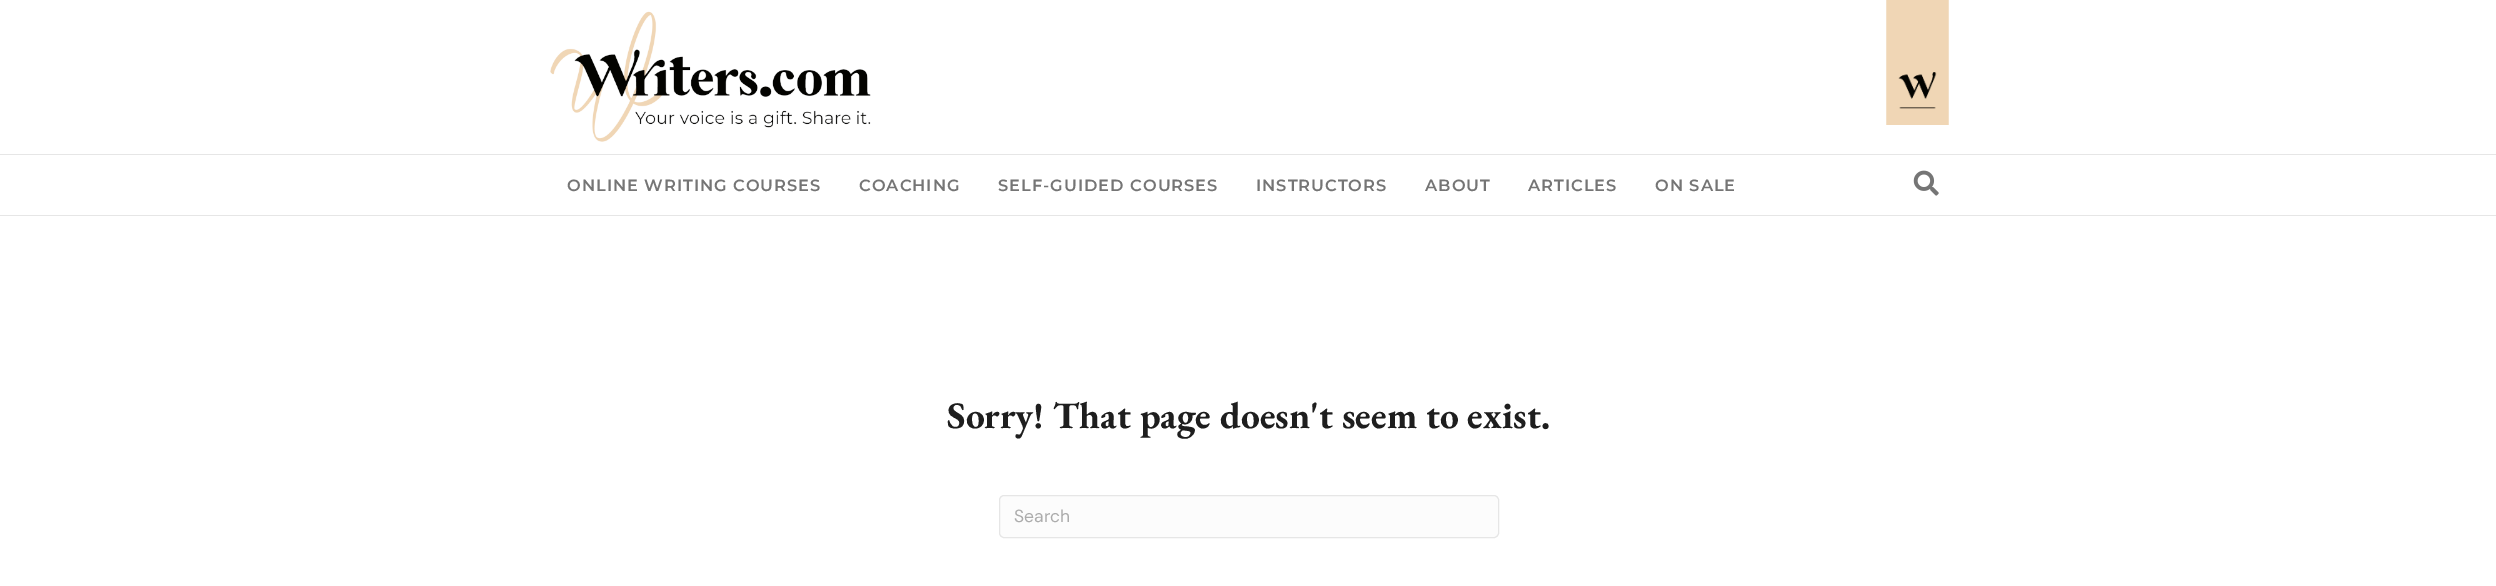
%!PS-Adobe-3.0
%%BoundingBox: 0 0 2496 586
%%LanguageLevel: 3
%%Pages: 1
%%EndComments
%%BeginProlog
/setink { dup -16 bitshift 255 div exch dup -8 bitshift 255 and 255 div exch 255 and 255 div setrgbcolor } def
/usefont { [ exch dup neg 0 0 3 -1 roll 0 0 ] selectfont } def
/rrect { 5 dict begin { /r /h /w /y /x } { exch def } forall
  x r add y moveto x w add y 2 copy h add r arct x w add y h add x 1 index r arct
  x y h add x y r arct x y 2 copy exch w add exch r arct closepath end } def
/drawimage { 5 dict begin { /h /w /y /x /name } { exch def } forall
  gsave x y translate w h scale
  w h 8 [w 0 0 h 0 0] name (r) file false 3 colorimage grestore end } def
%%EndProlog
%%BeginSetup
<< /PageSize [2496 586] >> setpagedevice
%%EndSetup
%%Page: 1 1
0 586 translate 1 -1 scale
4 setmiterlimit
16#FFFFFF setink
0 0 2496 586 rectfill
(img1.raw) 550 11 321 131 drawimage
(img2.raw) 1886 0 63 125 drawimage
16#E6E6E6 setink
0 154 2496 1 rectfill
0 215 2496 1 rectfill
/Montserrat-Thin 16.25 usefont
16#757575 setink
567 191 moveto 1 0 (ONLINE WRITING COURSES) ashow
859 191 moveto 1 0 (COACHING) ashow
998 191 moveto 1 0 (SELF-GUIDED COURSES) ashow
1256 191 moveto 1 0 (INSTRUCTORS) ashow
1425 191 moveto 1 0 (ABOUT) ashow
1528 191 moveto 1 0 (ARTICLES) ashow
1655 191 moveto 1 0 (ON SALE) ashow
(img3.raw) 1913 170 26 26 drawimage
/EBGaramond-Bold 37.5 usefont
16#1E1E1E setink
947 428 moveto (Sorry! That page doesn't seem to exist.) show
16#FCFCFC setink
999.5 495.5 499 42 4.5 rrect gsave fill grestore
16#E6E6E6 setink
stroke
/DMSans-Regular 17.5 usefont
16#ACACAC setink
1014 522 moveto (Search) show
showpage
%%EOF
